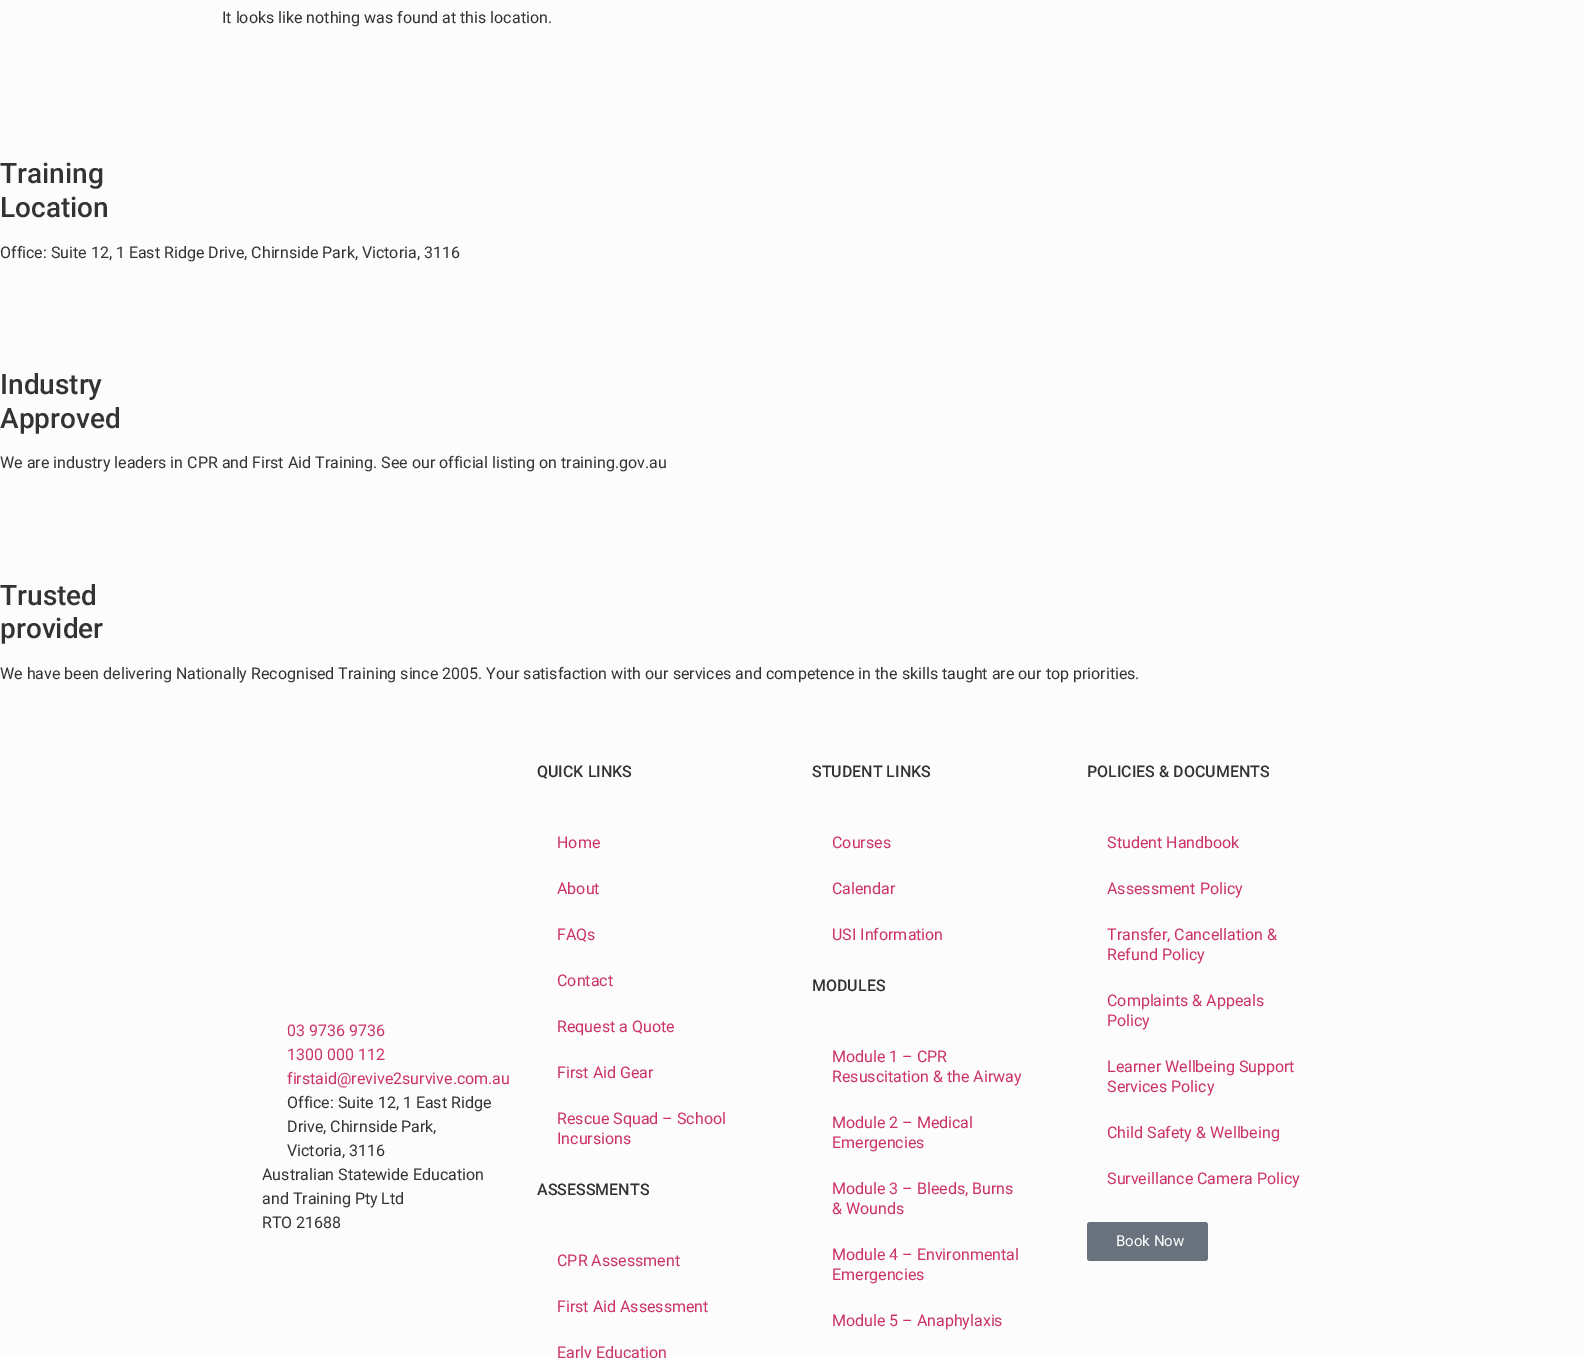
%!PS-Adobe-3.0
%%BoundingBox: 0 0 1583 1358
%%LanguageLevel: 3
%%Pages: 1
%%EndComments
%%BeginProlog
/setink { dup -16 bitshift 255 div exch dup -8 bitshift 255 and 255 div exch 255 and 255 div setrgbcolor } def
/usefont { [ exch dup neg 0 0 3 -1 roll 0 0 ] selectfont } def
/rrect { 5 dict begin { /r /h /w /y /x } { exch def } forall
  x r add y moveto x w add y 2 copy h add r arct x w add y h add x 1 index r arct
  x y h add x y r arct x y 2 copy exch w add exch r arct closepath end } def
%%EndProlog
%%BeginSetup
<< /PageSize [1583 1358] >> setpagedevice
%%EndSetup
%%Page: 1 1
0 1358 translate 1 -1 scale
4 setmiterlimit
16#FCFCFC setink
0 0 1583 1358 rectfill
/Roboto-Regular 16 usefont
16#333333 setink
222 23 moveto (It looks like nothing was found at this location.) show
/Roboto-Medium 28 usefont
0 183 moveto (Training) show
0 217 moveto (Location) show
/Roboto-Regular 16 usefont
0 258 moveto (Office: Suite 12, 1 East Ridge Drive, Chirnside Park, Victoria, 3116) show
/Roboto-Medium 28 usefont
0 394 moveto (Industry) show
0 428 moveto (Approved) show
/Roboto-Regular 16 usefont
0 468 moveto (We are industry leaders in CPR and First Aid Training. See our official listing on training.gov.au) show
16#FFFFFF setink
671 469 43 1 rectfill
/Roboto-Medium 28 usefont
16#333333 setink
0 605 moveto (Trusted) show
0 638 moveto (provider) show
/Roboto-Regular 16 usefont
0 679 moveto (We have been delivering Nationally Recognised Training since 2005. Your satisfaction with our services and competence in the skills taught are our top priorities.) show
16#CC3366 setink
[
    [(03 9736 9736) 287 1036]
    [(1300 000 112) 287 1060]
    [(firstaid@revive2survive.com.au) 287 1084]
] { aload pop moveto show } forall
16#333333 setink
[
    [(Office: Suite 12, 1 East Ridge) 287 1108]
    [(Drive, Chirnside Park,) 287 1132]
    [(Victoria, 3116) 287 1156]
    [(Australian Statewide Education) 262 1180]
    [(and Training Pty Ltd) 262 1204]
    [(RTO 21688) 262 1228]
] { aload pop moveto show } forall
/Roboto-Medium 16 usefont
537 777 moveto (QUICK LINKS) show
/Roboto-Regular 16 usefont
16#CC3366 setink
[
    [(Home) 557 848]
    [(About) 557 894]
    [(FAQs) 557 940]
    [(Contact) 557 986]
    [(Request a Quote) 557 1032]
    [(First Aid Gear) 557 1078]
    [(Rescue Squad – School) 557 1124]
    [(Incursions) 557 1144]
] { aload pop moveto show } forall
/Roboto-Medium 16 usefont
16#333333 setink
537 1195 moveto (ASSESSMENTS) show
/Roboto-Regular 16 usefont
16#CC3366 setink
[
    [(CPR Assessment) 557 1266]
    [(First Aid Assessment) 557 1312]
    [(Early Education) 557 1358]
] { aload pop moveto show } forall
/Roboto-Medium 16 usefont
16#333333 setink
812 777 moveto (STUDENT LINKS) show
/Roboto-Regular 16 usefont
16#CC3366 setink
[
    [(Courses) 832 848]
    [(Calendar) 832 894]
    [(USI Information) 832 940]
] { aload pop moveto show } forall
/Roboto-Medium 16 usefont
16#333333 setink
812 991 moveto (MODULES) show
/Roboto-Regular 16 usefont
16#CC3366 setink
[
    [(Module 1 – CPR) 832 1062]
    [(Resuscitation & the Airway) 832 1082]
    [(Module 2 – Medical) 832 1128]
    [(Emergencies) 832 1148]
    [(Module 3 – Bleeds, Burns) 832 1194]
    [(& Wounds) 832 1214]
    [(Module 4 – Environmental) 832 1260]
    [(Emergencies) 832 1280]
    [(Module 5 – Anaphylaxis) 832 1326]
] { aload pop moveto show } forall
/Roboto-Medium 16 usefont
16#333333 setink
1087 777 moveto (POLICIES & DOCUMENTS) show
/Roboto-Regular 16 usefont
16#CC3366 setink
[
    [(Student Handbook) 1107 848]
    [(Assessment Policy) 1107 894]
    [(Transfer, Cancellation &) 1107 940]
    [(Refund Policy) 1107 960]
    [(Complaints & Appeals) 1107 1006]
    [(Policy) 1107 1026]
    [(Learner Wellbeing Support) 1107 1072]
    [(Services Policy) 1107 1092]
    [(Child Safety & Wellbeing) 1107 1138]
    [(Surveillance Camera Policy) 1107 1184]
] { aload pop moveto show } forall
16#69727D setink
1087 1222 121 39 3 rrect fill
/Roboto-Regular 15 usefont
16#FFFFFF setink
1116 1246 moveto (Book Now) show
showpage
%%EOF
